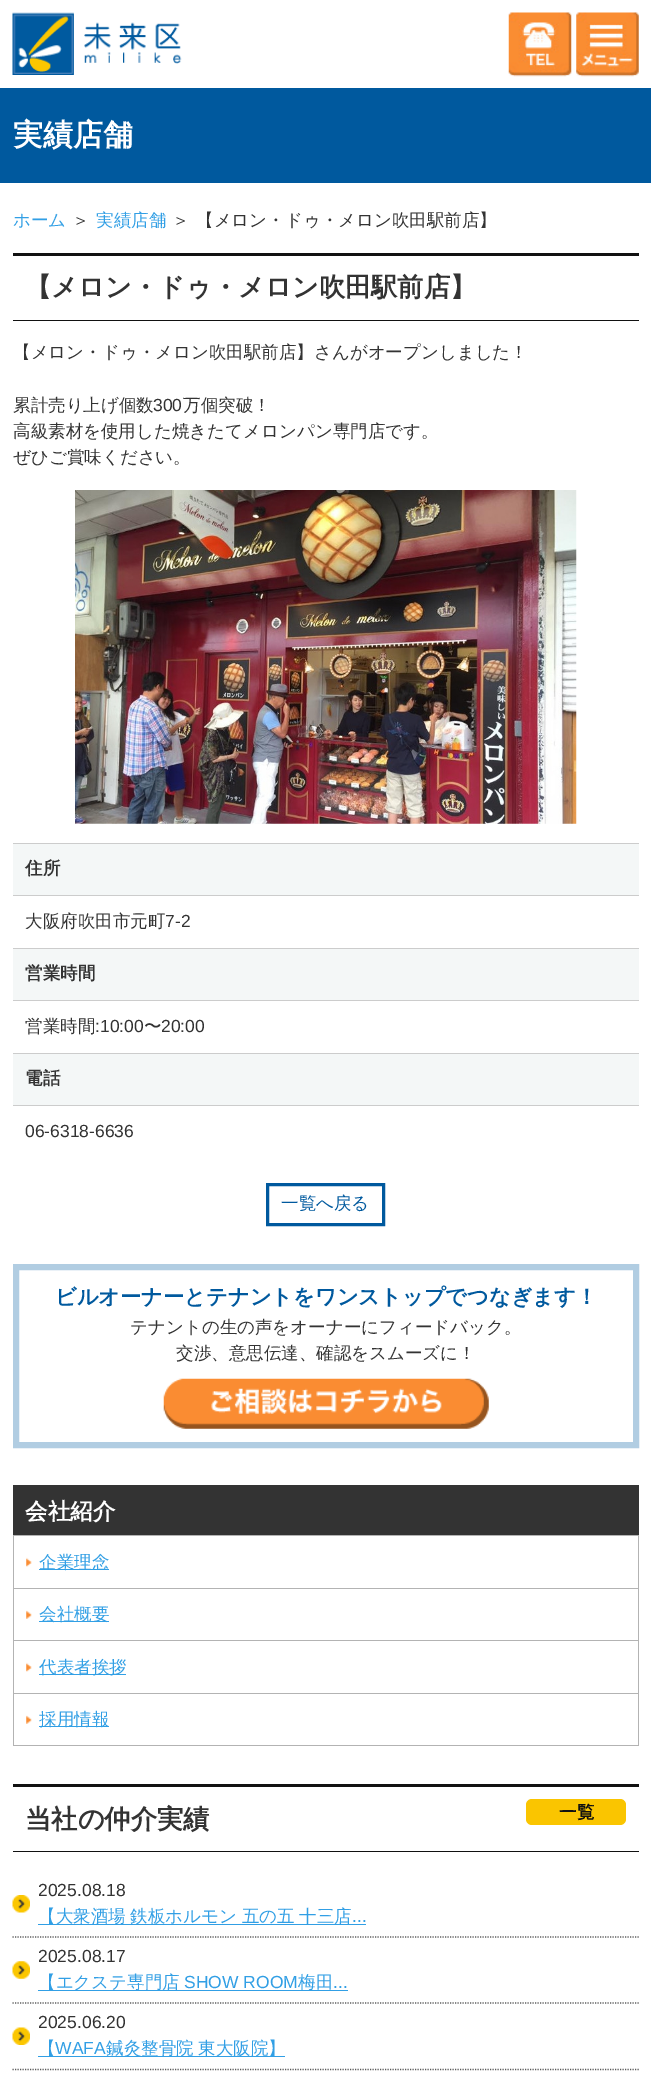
%!PS-Adobe-3.0
%%BoundingBox: 0 0 651 2080
%%LanguageLevel: 3
%%Pages: 1
%%EndComments
%%BeginProlog
/setink { dup -16 bitshift 255 div exch dup -8 bitshift 255 and 255 div exch 255 and 255 div setrgbcolor } def
/usefont { [ exch dup neg 0 0 3 -1 roll 0 0 ] selectfont } def
/rrect { 5 dict begin { /r /h /w /y /x } { exch def } forall
  x r add y moveto x w add y 2 copy h add r arct x w add y h add x 1 index r arct
  x y h add x y r arct x y 2 copy exch w add exch r arct closepath end } def
/drawimage { 5 dict begin { /h /w /y /x /name } { exch def } forall
  gsave x y translate w h scale
  w h 8 [w 0 0 h 0 0] name (r) file false 3 colorimage grestore end } def
%%EndProlog
%%BeginSetup
<< /PageSize [651 2080] >> setpagedevice
%%EndSetup
%%Page: 1 1
0 2080 translate 1 -1 scale
4 setmiterlimit
16#FFFFFF setink
0 0 651 2080 rectfill
(img1.raw) 12 12 170 63 drawimage
(img2.raw) 508 12 64 65 drawimage
(img3.raw) 576 12 63 65 drawimage
16#00599E setink
0 88 651 95 rectfill
/WenQuanYiZenHei-Bold 30 usefont
16#FFFFFF setink
13 145 moveto (実績店舗) show
/WenQuanYiZenHei-Medium 17.5 usefont
16#319FE5 setink
13 226 moveto (ホーム) show
16#333333 setink
72 226 moveto (＞) show
16#319FE5 setink
96 226 moveto (実績店舗) show
16#333333 setink
172 226 moveto (＞) show
196 226 moveto (【メロン・ドゥ・メロン吹田駅前店】) show
16#111111 setink
13 253 626 3 rectfill
13 320 626 1 rectfill
/WenQuanYiZenHei-Bold 26.25 usefont
16#333333 setink
25 296 moveto (【メロン・ドゥ・メロン吹田駅前店】) show
/WenQuanYiZenHei-Medium 17.5 usefont
13 358 moveto (【メロン・ドゥ・メロン吹田駅前店】さんがオープンしました！) show
13 411 moveto (累計売り上げ個数) show
/LiberationSans-Regular 17.5 usefont
153 411 moveto (300) show
/WenQuanYiZenHei-Medium 17.5 usefont
[
    [(万個突破！) 183 411]
    [(高級素材を使用した焼きたてメロンパン専門店です。) 13 437]
    [(ぜひご賞味ください。) 13 463]
] { aload pop moveto show } forall
(img4.raw) 75 490 502 334 drawimage
16#F4F7F7 setink
13 844 626 51 rectfill
16#CCCCCC setink
13 843 626 1 rectfill
/WenQuanYiZenHei-Bold 17.5 usefont
16#333333 setink
25 874 moveto (住所) show
16#CCCCCC setink
13 895 626 1 rectfill
/WenQuanYiZenHei-Medium 17.5 usefont
16#333333 setink
25 927 moveto (大阪府吹田市元町) show
/LiberationSans-Regular 17.5 usefont
165 927 moveto (7-2) show
16#F4F7F7 setink
13 949 626 51 rectfill
16#CCCCCC setink
13 948 626 1 rectfill
/WenQuanYiZenHei-Bold 17.5 usefont
16#333333 setink
25 979 moveto (営業時間) show
16#CCCCCC setink
13 1000 626 1 rectfill
/WenQuanYiZenHei-Medium 17.5 usefont
16#333333 setink
25 1032 moveto (営業時間) show
/LiberationSans-Regular 17.5 usefont
95 1032 moveto (:10:00) show
/WenQuanYiZenHei-Medium 17.5 usefont
144 1032 moveto (〜) show
/LiberationSans-Regular 17.5 usefont
161 1032 moveto (20:00) show
16#F4F7F7 setink
13 1054 626 51 rectfill
16#CCCCCC setink
13 1053 626 1 rectfill
/WenQuanYiZenHei-Bold 17.5 usefont
16#333333 setink
25 1084 moveto (電話) show
16#CCCCCC setink
13 1105 626 1 rectfill
/LiberationSans-Regular 17.5 usefont
16#333333 setink
25 1137 moveto (06-6318-6636) show
16#00599E setink
3 setlinewidth
267.5 1184.5 116 40 rectstroke
/WenQuanYiZenHei-Medium 17.5 usefont
281 1209 moveto (一覧へ戻る) show
16#B1CDE2 setink
6 setlinewidth
16 1267 620 178 rectstroke
/WenQuanYiZenHei-Bold 21.25 usefont
16#00599E setink
55 1304 moveto (ビルオーナーとテナントをワンストップでつなぎます！) show
/WenQuanYiZenHei-Medium 17.5 usefont
16#333333 setink
130 1333 moveto (テナントの生の声をオーナーにフィードバック。) show
176 1359 moveto (交渉、意思伝達、確認をスムーズに！) show
(img5.raw) 163 1378 326 51 drawimage
13 1485 626 50 rectfill
/WenQuanYiZenHei-Bold 22.5 usefont
16#FFFFFF setink
25 1519 moveto (会社紹介) show
[
    [13 1535 626 1 16#B3B3B3]
    [638 1535 1 211 16#B3B3B3]
    [13 1535 1 211 16#B3B3B3]
] { aload pop setink rectfill } forall
(img6.raw) 26 1557 6 10 drawimage
14 1588 624 1 rectfill
16#319FE5 setink
39 1569 70 1 rectfill
/WenQuanYiZenHei-Medium 17.5 usefont
39 1568 moveto (企業理念) show
(img7.raw) 26 1610 6 9 drawimage
16#B3B3B3 setink
14 1640 624 1 rectfill
16#319FE5 setink
39 1621 70 1 rectfill
39 1620 moveto (会社概要) show
(img6.raw) 26 1662 6 10 drawimage
16#B3B3B3 setink
14 1693 624 1 rectfill
16#319FE5 setink
39 1674 87 1 rectfill
39 1673 moveto (代表者挨拶) show
(img7.raw) 26 1715 6 9 drawimage
16#B3B3B3 setink
14 1745 624 1 rectfill
16#319FE5 setink
39 1726 70 1 rectfill
39 1725 moveto (採用情報) show
16#111111 setink
13 1784 626 3 rectfill
13 1851 626 1 rectfill
/WenQuanYiZenHei-Bold 26.25 usefont
16#333333 setink
25 1828 moveto (当社の仲介実績) show
16#FAC500 setink
526 1799 100 26 6 rrect fill
/WenQuanYiZenHei-Bold 17.5 usefont
16#111111 setink
559 1818 moveto (一覧) show
(img8.raw) 12 1895 18 18 drawimage
16#5C5C5C setink
1.2 setlinewidth
[1.25 1.25] 0 setdash
12.5 1937 moveto 639 1937 lineto stroke
/LiberationSans-Regular 17.5 usefont
16#333333 setink
38 1896 moveto (2025.08.18) show
16#319FE5 setink
38 1924 328 1 rectfill
/WenQuanYiZenHei-Medium 17.5 usefont
38 1922 moveto -0.5 0 32 (【大衆酒場 鉄板ホルモン 五の五 十三店) widthshow
/LiberationSans-Regular 17.5 usefont
352 1922 moveto (...) show
(img9.raw) 12 1961 18 18 drawimage
16#5C5C5C setink
12.5 2003 moveto 639 2003 lineto stroke
16#333333 setink
38 1962 moveto (2025.08.17) show
16#319FE5 setink
38 1990 310 1 rectfill
/WenQuanYiZenHei-Medium 17.5 usefont
38 1988 moveto (【エクステ専門店) show
/LiberationSans-Regular 17.5 usefont
184 1988 moveto (SHOW ROOM) show
/WenQuanYiZenHei-Medium 17.5 usefont
298 1988 moveto (梅田) show
/LiberationSans-Regular 17.5 usefont
333 1988 moveto (...) show
(img10.raw) 12 2027 18 18 drawimage
16#5C5C5C setink
12.5 2069.5 moveto 639 2069.5 lineto stroke
16#333333 setink
38 2028 moveto (2025.06.20) show
/WenQuanYiZenHei-Medium 17.5 usefont
16#319FE5 setink
38 2054 moveto (【) show
/LiberationSans-Regular 17.5 usefont
55 2054 moveto (WAFA) show
38 2056 247 1 rectfill
/WenQuanYiZenHei-Medium 17.5 usefont
106 2054 moveto -0.5 0 32 (鍼灸整骨院 東大阪院】) widthshow
showpage
%%EOF
